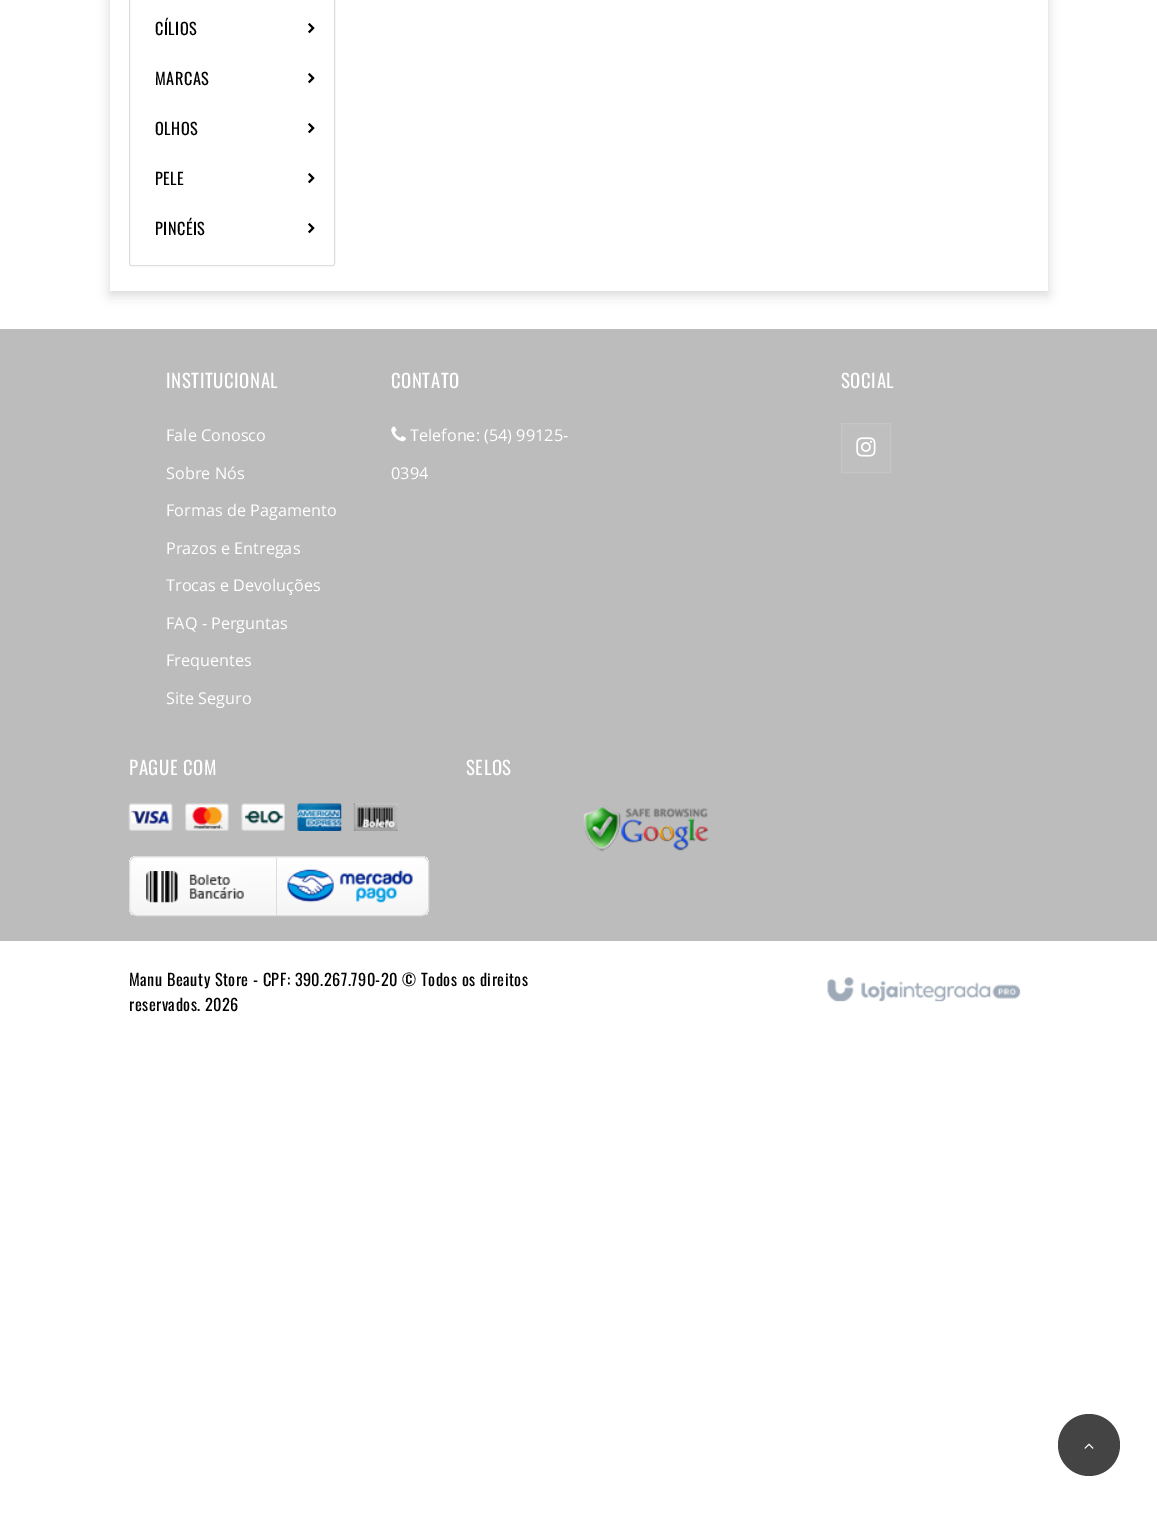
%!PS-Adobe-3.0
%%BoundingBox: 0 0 1157 1513
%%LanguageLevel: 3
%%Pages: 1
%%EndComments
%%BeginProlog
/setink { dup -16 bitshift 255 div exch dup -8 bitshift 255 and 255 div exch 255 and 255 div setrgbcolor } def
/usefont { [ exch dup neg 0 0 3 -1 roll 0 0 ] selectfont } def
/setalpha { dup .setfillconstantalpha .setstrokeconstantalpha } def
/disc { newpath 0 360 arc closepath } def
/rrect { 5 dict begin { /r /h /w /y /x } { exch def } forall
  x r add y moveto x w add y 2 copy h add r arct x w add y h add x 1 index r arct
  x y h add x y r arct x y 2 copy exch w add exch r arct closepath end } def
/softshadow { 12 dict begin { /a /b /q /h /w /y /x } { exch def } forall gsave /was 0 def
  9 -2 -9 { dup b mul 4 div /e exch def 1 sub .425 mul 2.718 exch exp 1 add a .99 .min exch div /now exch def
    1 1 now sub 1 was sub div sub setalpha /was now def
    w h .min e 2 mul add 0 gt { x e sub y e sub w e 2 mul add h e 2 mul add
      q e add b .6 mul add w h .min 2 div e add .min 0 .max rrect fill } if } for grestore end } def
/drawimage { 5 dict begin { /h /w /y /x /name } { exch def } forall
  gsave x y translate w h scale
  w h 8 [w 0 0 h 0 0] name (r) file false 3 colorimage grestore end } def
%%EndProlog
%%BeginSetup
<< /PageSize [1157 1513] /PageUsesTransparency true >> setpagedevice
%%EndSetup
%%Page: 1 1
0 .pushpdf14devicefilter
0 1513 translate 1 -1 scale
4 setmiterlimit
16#FFFFFF setink
0 0 1157 1513 rectfill
16#000000 setink
110 -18 938 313 0 6 0.15 softshadow
16#FFFFFF setink
110 0 938 291 rectfill
16#DDDDDD setink
129.5 -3.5 205 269 2 rrect stroke
/Oswald-Regular 16.25 usefont
16#000000 setink
155 35 moveto 0.5 0 (CÍLIOS) ashow
(img1.raw) 308 23 7 11 drawimage
155 85 moveto 0.5 0 (MARCAS) ashow
(img1.raw) 308 73 7 11 drawimage
155 135 moveto 0.5 0 (OLHOS) ashow
(img1.raw) 308 123 7 11 drawimage
155 185 moveto 0.5 0 (PELE) ashow
(img1.raw) 308 173 7 11 drawimage
155 235 moveto 0.5 0 (PINCÉIS) ashow
(img1.raw) 308 223 7 11 drawimage
16#BCBCBC setink
0 329 1157 612 rectfill
/Oswald-Regular 18.75 usefont
16#FFFFFF setink
166 388 moveto 0.6 0 (INSTITUCIONAL) ashow
/OpenSans-Regular 16.25 usefont
[
    [(Fale Conosco) 166 441]
    [(Sobre Nós) 166 479]
    [(Formas de Pagamento) 166 516]
    [(Prazos e Entregas) 166 554]
    [(Trocas e Devoluções) 166 591]
    [(FAQ - Perguntas) 166 629]
    [(Frequentes) 166 666]
    [(Site Seguro) 166 704]
] { aload pop moveto show } forall
/Oswald-Regular 18.75 usefont
391 388 moveto 0.6 0 (CONTATO) ashow
(img2.raw) 391 426 15 16 drawimage
/OpenSans-Regular 16.25 usefont
410 441 moveto (Telefone: \(54\) 99125-) show
391 479 moveto (0394) show
/Oswald-Regular 18.75 usefont
129 775 moveto 0.6 0 (PAGUE COM) ashow
(img3.raw) 128 803 45 28 drawimage
(img4.raw) 185 803 44 28 drawimage
(img5.raw) 241 803 44 28 drawimage
(img6.raw) 297 803 45 28 drawimage
(img7.raw) 353 803 45 28 drawimage
gsave
129 856 300 60 8 rrect clip newpath
gsave 129 856 moveto 429 856 lineto 429 858 lineto 129 858 lineto closepath clip newpath
<< /ShadingType 2 /ColorSpace /DeviceRGB /Coords [279 800 279 858] /Extend [true true] /Function << /FunctionType 2 /Domain [0 1] /C0 [1 1 1] /C1 [0.961 0.961 0.961] /N 1 >> >> shfill grestore
gsave 129 858 moveto 429 858 lineto 429 915 lineto 129 915 lineto closepath clip newpath
<< /ShadingType 2 /ColorSpace /DeviceRGB /Coords [279 858 279 915] /Extend [true true] /Function << /FunctionType 2 /Domain [0 1] /C0 [1 1 1] /C1 [0.961 0.961 0.961] /N 1 >> >> shfill grestore
grestore
16#DDDDDD setink
129.5 856.5 299 59 7.5 rrect stroke
(img8.raw) 146 871 98 32 drawimage
276 858 1 57 rectfill
(img9.raw) 287 869 126 34 drawimage
16#FFFFFF setink
466 775 moveto 0.6 0 (SELOS) ashow
(img10.raw) 583 805 126 47 drawimage
841 388 moveto 0.6 0 (SOCIAL) ashow
16#BFBFBF setink
841.5 423.5 moveto 890.5 423.5 lineto 890.5 472.5 lineto 841.5 472.5 lineto closepath gsave fill grestore
16#C5C5C5 setink
stroke
(img11.raw) 856 437 20 20 drawimage
/Oswald-Regular 16.25 usefont
16#000000 setink
129 986 moveto 0.5 0 (Manu Beauty Store - CPF: 390.267.790-20 © Todos os direitos) ashow
129 1011 moveto 0.5 0 (reservados. 2026) ashow
(img12.raw) 827 977 194 25 drawimage
16#444444 setink
1089 1445 31 disc fill
(img13.raw) 1084 1443 10 6 drawimage
.poppdf14devicefilter showpage
%%EOF
